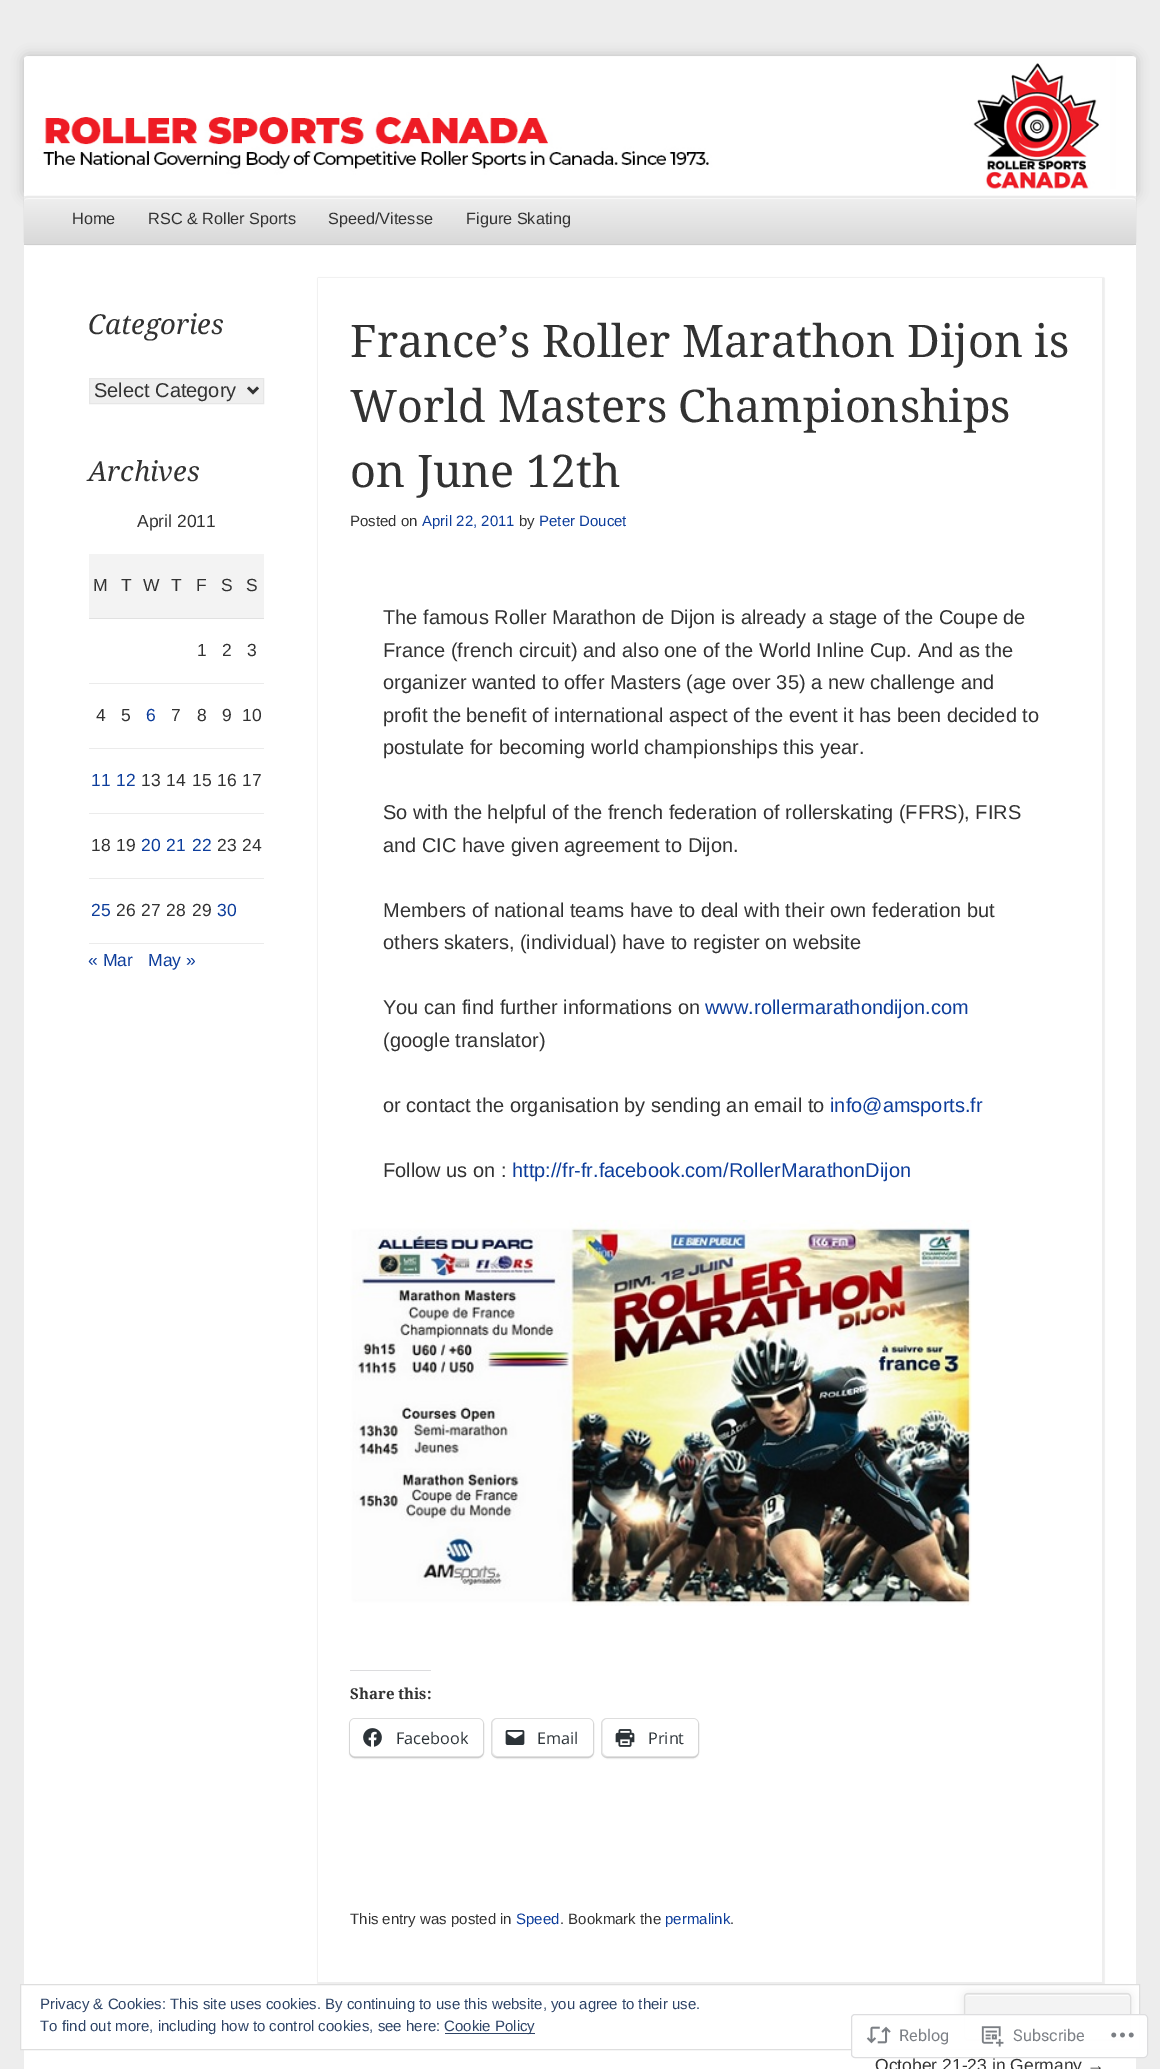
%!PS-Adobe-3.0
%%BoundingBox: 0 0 1160 2069
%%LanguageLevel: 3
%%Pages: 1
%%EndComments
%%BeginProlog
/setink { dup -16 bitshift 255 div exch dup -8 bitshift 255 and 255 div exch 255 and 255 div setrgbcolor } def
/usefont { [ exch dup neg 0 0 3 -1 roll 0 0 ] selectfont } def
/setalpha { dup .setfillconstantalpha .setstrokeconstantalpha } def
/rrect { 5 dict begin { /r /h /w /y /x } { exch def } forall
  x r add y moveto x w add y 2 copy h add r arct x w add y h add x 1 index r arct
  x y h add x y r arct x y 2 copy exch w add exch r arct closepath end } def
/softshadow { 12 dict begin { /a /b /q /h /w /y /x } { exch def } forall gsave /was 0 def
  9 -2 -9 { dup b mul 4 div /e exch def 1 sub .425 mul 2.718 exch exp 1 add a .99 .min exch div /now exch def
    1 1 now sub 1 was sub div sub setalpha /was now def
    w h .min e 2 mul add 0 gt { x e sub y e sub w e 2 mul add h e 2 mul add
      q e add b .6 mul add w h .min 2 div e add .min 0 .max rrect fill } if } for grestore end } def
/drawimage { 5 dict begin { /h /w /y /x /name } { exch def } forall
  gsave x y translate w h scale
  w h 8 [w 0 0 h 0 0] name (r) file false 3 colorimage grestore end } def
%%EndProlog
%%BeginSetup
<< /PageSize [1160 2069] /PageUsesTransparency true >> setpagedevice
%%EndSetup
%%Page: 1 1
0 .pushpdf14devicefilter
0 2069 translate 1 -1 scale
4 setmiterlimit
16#EDEDED setink
0 0 1160 2069 rectfill
16#FFFFFF setink
28 56 moveto 1132 56 lineto 1134 56 1136 58 1136 60 curveto 1136 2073 lineto 24 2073 lineto 24 60 lineto 24 58 26 56 28 56 curveto closepath fill
gsave
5 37 moveto 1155 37 lineto 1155 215 lineto 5 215 lineto closepath 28 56 moveto 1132 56 lineto 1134 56 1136 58 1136 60 curveto 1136 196 lineto 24 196 lineto 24 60 lineto 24 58 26 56 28 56 curveto closepath eoclip newpath
16#000000 setink
24 56 1112 140 4 6 0.2 softshadow
grestore
(img1.raw) 24 56 1112 133 drawimage
16#000000 setink
24 196 1112 49 4 0.5 0.1 softshadow
gsave 28 196 moveto 1132 196 lineto 1134 196 1136 198 1136 200 curveto 1136 245 lineto 24 245 lineto 24 200 lineto 24 198 26 196 28 196 curveto closepath clip newpath
<< /ShadingType 2 /ColorSpace /DeviceRGB /Coords [580 196 580 245] /Extend [true true] /Function << /FunctionType 2 /Domain [0 1] /C0 [0.941 0.941 0.941] /C1 [0.847 0.847 0.847] /N 1 >> >> shfill grestore
16#CECECE setink
24 244 1112 1 rectfill
16#F8F8F8 setink
28 199 moveto 1132 199 lineto 1135 199 1136 200 1136 202 curveto 1136 200 lineto 1136 198 1134 196 1132 196 curveto 28 196 lineto 26 196 24 198 24 200 curveto 24 202 lineto 24 200 25 199 28 199 curveto closepath fill
0.8 setalpha
16#E6E6E6 setink
28 198 moveto 1132 198 lineto 1135 198 1136 199 1136 201 curveto 1136 198 1135 196 1132 196 curveto 28 196 lineto 25 196 24 198 24 201 curveto 24 199 25 198 28 198 curveto closepath fill
/LiberationSans-Regular 16.25 usefont
1 setalpha
16#323232 setink
[
    [(Home) 72 224]
    [(RSC & Roller Sports) 148 224]
    [(Speed/Vitesse) 328 224]
    [(Figure Skating) 466 224]
] { aload pop moveto show } forall
/DroidSerif-Italic 27.5 usefont
88 334 moveto (Categories) show
16#EFEFEF setink
89.5 378.5 moveto 263.5 378.5 lineto 263.5 403.5 lineto 89.5 403.5 lineto closepath gsave fill grestore
16#E6E6E6 setink
stroke
16#323232 setink
2.5 setlinewidth
248 387.5 moveto 253 392.5 lineto 258 387.5 lineto stroke
/LiberationSans-Regular 20 usefont
94 397 moveto (Select Category) show
/DroidSerif-Italic 27.5 usefont
88 481 moveto (Archives) show
/LiberationSans-Regular 17.5 usefont
137 527 moveto (April 2011) show
16#F3F3F3 setink
89 554 175 64 rectfill
16#E1E1E1 setink
89 618 175 1 rectfill
16#323232 setink
[
    [(M) 93 591]
    [(T) 121 591]
    [(W) 143 591]
    [(T) 171 591]
    [(F) 196 591]
    [(S) 221 591]
    [(S) 246 591]
    [(1) 197 656]
    [(2) 222 656]
    [(3) 247 656]
] { aload pop moveto show } forall
16#EBEBEB setink
89 683 175 1 rectfill
89 748 175 1 rectfill
16#323232 setink
96 721 moveto (4) show
121 721 moveto (5) show
16#0D3D9B setink
146 721 moveto (6) show
16#323232 setink
[
    [(7) 171 721]
    [(8) 197 721]
    [(9) 222 721]
    [(10) 242 721]
] { aload pop moveto show } forall
16#EBEBEB setink
89 813 175 1 rectfill
16#0D3D9B setink
91 786 moveto (11) show
116 786 moveto (12) show
16#323232 setink
[
    [(13) 141 786]
    [(14) 166 786]
    [(15) 192 786]
    [(16) 217 786]
    [(17) 242 786]
] { aload pop moveto show } forall
16#EBEBEB setink
89 878 175 1 rectfill
16#323232 setink
91 851 moveto (18) show
116 851 moveto (19) show
16#0D3D9B setink
[
    [(20) 141 851]
    [(21) 166 851]
    [(22) 192 851]
] { aload pop moveto show } forall
16#323232 setink
217 851 moveto (23) show
242 851 moveto (24) show
16#EBEBEB setink
89 943 175 1 rectfill
16#0D3D9B setink
91 916 moveto (25) show
16#323232 setink
[
    [(26) 116 916]
    [(27) 141 916]
    [(28) 166 916]
    [(29) 192 916]
] { aload pop moveto show } forall
16#0D3D9B setink
[
    [(30) 217 916]
    [(« Mar) 88 966]
    [(May ») 148 966]
] { aload pop moveto show } forall
gsave
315 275 moveto 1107 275 lineto 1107 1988 lineto 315 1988 lineto closepath 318 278 moveto 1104 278 lineto 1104 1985 lineto 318 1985 lineto closepath eoclip newpath
16#000000 setink
318 278 786 1707 0 0.5 0.2 softshadow
grestore
gsave
318 278 786 1706 rectclip
0.3 setalpha
16#C8C8C8 setink
194 154 moveto 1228 154 lineto 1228 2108 lineto 194 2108 lineto closepath 316 276 moveto 1102 276 lineto 1102 1982 lineto 316 1982 lineto closepath eofill
grestore
/DroidSerif-Regular 45 usefont
16#323232 setink
[
    [(France’s Roller Marathon Dijon is) 350 357]
    [(World Masters Championships) 350 422]
    [(on June 12th) 350 487]
] { aload pop moveto show } forall
/LiberationSans-Regular 15 usefont
350 526 moveto (Posted on) show
16#0D3D9B setink
422 526 moveto (April 22, 2011) show
16#323232 setink
519 526 moveto (by) show
16#0D3D9B setink
539 526 moveto (Peter Doucet) show
/LiberationSans-Regular 20 usefont
16#323232 setink
[
    [(The famous Roller Marathon de Dijon is already a stage of the Coupe de) 383 624]
    [(France \(french circuit\) and also one of the World Inline Cup. And as the) 383 657]
    [(organizer wanted to offer Masters \(age over 35\) a new challenge and) 383 689]
    [(profit the benefit of international aspect of the event it has been decided to) 383 722]
    [(postulate for becoming world championships this year.) 383 754]
    [(So with the helpful of the french federation of rollerskating \(FFRS\), FIRS) 383 819]
    [(and CIC have given agreement to Dijon.) 383 852]
    [(Members of national teams have to deal with their own federation but) 383 917]
    [(others skaters, \(individual\) have to register on website) 383 949]
    [(You can find further informations on) 383 1014]
] { aload pop moveto show } forall
16#0D3D9B setink
705 1014 moveto (www.rollermarathondijon.com) show
16#323232 setink
383 1047 moveto (\(google translator\)) show
383 1112 moveto (or contact the organisation by sending an email to) show
16#0D3D9B setink
830 1112 moveto (info@amsports.fr) show
16#323232 setink
383 1177 moveto (Follow us on :) show
16#0D3D9B setink
512 1177 moveto (http://fr-fr.facebook.com/RollerMarathonDijon) show
(img2.raw) 350 1220 622 386 drawimage
16#DCDCDE setink
350 1670 81 1 rectfill
/DroidSerif-Bold 15 usefont
16#323232 setink
350 1699 moveto (Share this:) show
16#E0E0E0 setink
1 setlinewidth
349.5 1718.5 134 39 5.5 rrect stroke
16#000000 setink
350 1720 133 38 5 1 0.12 softshadow
16#FFFFFF setink
350 1719 133 37 5 rrect fill
(img3.raw) 363 1728 19 19 drawimage
/OpenSans-Regular 16.25 usefont
16#2C3338 setink
396 1744 moveto (Facebook) show
16#E0E0E0 setink
491.5 1718.5 102 39 5.5 rrect stroke
16#000000 setink
493 1720 100 38 5 1 0.12 softshadow
16#FFFFFF setink
493 1719 100 37 5 rrect fill
(img4.raw) 505 1730 20 15 drawimage
16#2C3338 setink
537 1744 moveto (Email) show
16#E0E0E0 setink
601.5 1718.5 97 39 5.5 rrect stroke
16#000000 setink
603 1720 95 38 5 1 0.12 softshadow
16#FFFFFF setink
603 1719 95 37 5 rrect fill
(img5.raw) 615 1729 20 18 drawimage
16#2C3338 setink
648 1744 moveto (Print) show
/LiberationSans-Regular 15 usefont
16#323232 setink
350 1924 moveto (This entry was posted in) show
16#0D3D9B setink
516 1924 moveto (Speed) show
16#323232 setink
560 1924 moveto (. Bookmark the) show
16#0D3D9B setink
665 1924 moveto (permalink) show
16#323232 setink
730 1924 moveto (.) show
/LiberationSans-Regular 17.5 usefont
875 2071 moveto (October 21-23 in Germany →) show
16#FFFFFF setink
20.5 1984.5 moveto 1139.5 1984.5 lineto 1139.5 2049.5 lineto 20.5 2049.5 lineto closepath gsave fill grestore
16#DEDEDE setink
stroke
/LiberationSans-Regular 15 usefont
16#2E4467 setink
40 2009 moveto (Privacy & Cookies: This site uses cookies. By continuing to use this website, you agree to their use.) show
16#000000 setink
964 1993 167 48 4 4.5 0.09 softshadow
16#F3F3F3 setink
964 1993 167 48 4 rrect fill
16#D0D0D0 setink
965 2036 moveto 965 2038 965 2040 968 2040 curveto 1128 2040 lineto 1130 2040 1130 2038 1130 2036 curveto 1130 2038 1129 2039 1128 2039 curveto 968 2039 lineto 966 2039 965 2038 965 2036 curveto closepath fill
16#FDFDFD setink
968 1996 moveto 1128 1996 lineto 1129 1996 1130 1997 1130 1999 curveto 1130 1996 lineto 1130 1995 1129 1994 1128 1994 curveto 968 1994 lineto 966 1994 965 1995 965 1996 curveto 965 1999 lineto 965 1997 966 1996 968 1996 curveto closepath fill
0.8 setalpha
16#E7E7E7 setink
968 1995 moveto 1128 1995 lineto 1129 1995 1130 1996 1130 1998 curveto 1130 1996 1130 1994 1128 1994 curveto 968 1994 lineto 965 1994 965 1996 965 1998 curveto 965 1996 966 1995 968 1995 curveto closepath fill
1 setalpha
16#DEDEDE setink
964.5 1993.5 166 47 3.5 rrect stroke
16#2E4467 setink
40 2031 moveto (To find out more, including how to control cookies, see here:) show
445 2033 90 1 rectfill
444 2031 moveto (Cookie Policy) show
0.98 setalpha
16#FFFFFF setink
851 2014 297 44 4 rrect fill
16#DCDCDE setink
851.5 2014.5 296 43 3.5 rrect stroke
1 setalpha
(img6.raw) 866 2026 25 18 drawimage
/Roboto-Regular 16.25 usefont
16#7B7F85 setink
899 2041 moveto (Reblog) show
(img7.raw) 981 2026 23 21 drawimage
1013 2041 moveto (Subscribe) show
(img8.raw) 1111 2032 23 6 drawimage
.poppdf14devicefilter showpage
%%EOF
